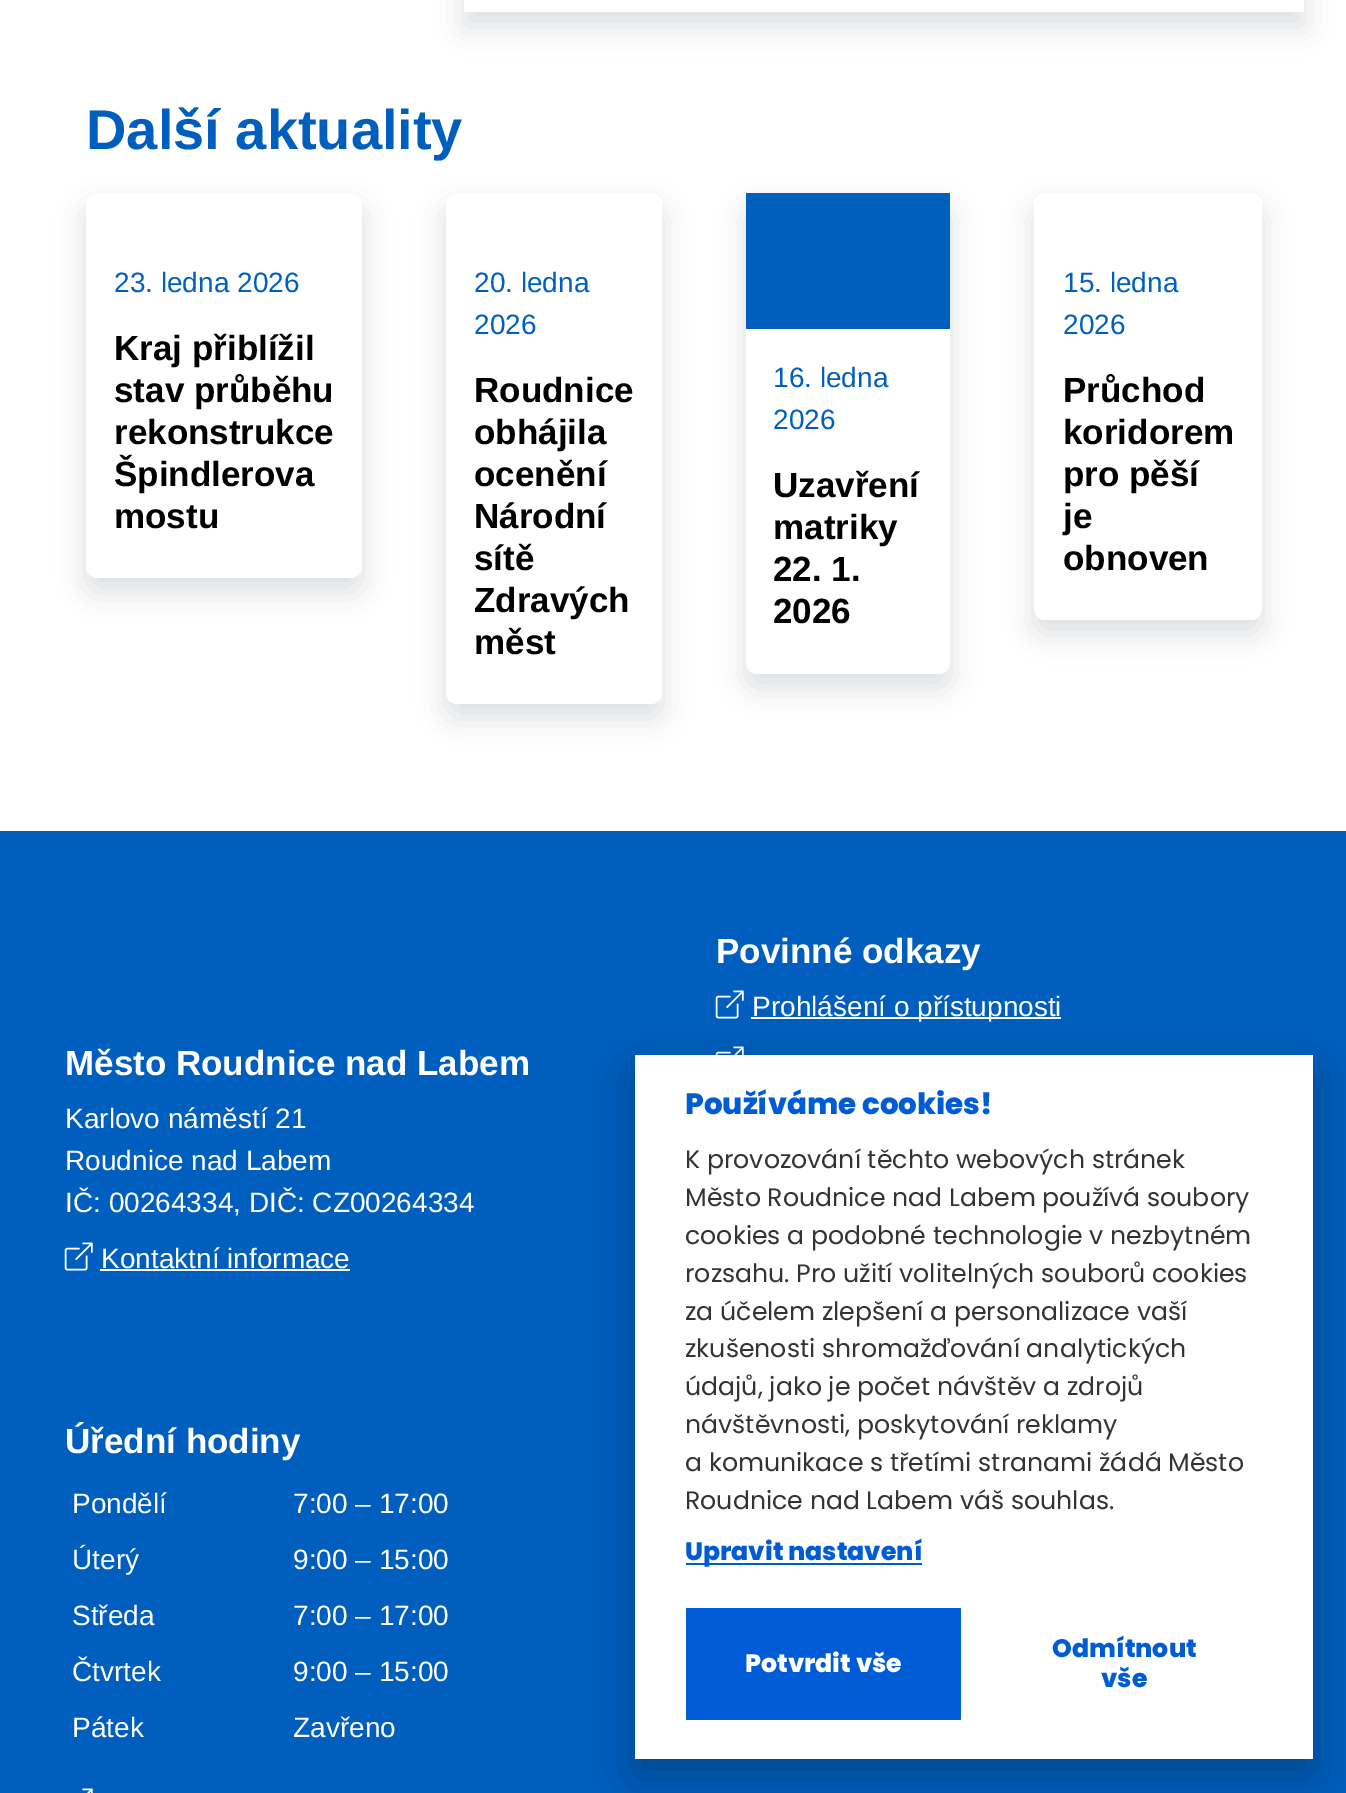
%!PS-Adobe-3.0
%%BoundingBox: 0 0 1346 1793
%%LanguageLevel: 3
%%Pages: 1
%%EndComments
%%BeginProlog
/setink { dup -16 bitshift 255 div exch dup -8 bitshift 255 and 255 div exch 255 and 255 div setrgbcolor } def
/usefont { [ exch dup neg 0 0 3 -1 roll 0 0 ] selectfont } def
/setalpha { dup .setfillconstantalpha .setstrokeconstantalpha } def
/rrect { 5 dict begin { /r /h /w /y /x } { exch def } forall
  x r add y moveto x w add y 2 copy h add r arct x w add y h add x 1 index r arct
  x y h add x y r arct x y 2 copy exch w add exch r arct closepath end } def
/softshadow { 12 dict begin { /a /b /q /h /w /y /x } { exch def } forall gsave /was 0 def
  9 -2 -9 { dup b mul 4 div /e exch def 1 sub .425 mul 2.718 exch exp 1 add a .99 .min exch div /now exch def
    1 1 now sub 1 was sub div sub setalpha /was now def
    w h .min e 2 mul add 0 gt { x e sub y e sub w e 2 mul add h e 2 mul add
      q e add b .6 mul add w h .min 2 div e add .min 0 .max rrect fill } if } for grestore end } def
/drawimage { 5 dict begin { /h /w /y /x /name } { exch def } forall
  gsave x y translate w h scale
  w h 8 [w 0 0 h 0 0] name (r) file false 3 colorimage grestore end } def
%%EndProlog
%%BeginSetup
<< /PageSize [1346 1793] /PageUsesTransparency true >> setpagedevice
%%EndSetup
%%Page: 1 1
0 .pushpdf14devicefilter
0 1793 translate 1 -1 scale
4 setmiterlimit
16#FFFFFF setink
0 0 1346 1793 rectfill
gsave
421 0 moveto 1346 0 lineto 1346 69 lineto 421 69 lineto closepath 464 -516 moveto 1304 -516 lineto 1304 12 lineto 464 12 lineto closepath eoclip newpath
16#212529 setink
464 -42 840 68 0 14 0.15 softshadow
grestore
/LiberationSans-Bold 56 usefont
16#005FBE setink
86 149 moveto (Další aktuality) show
16#212529 setink
86 207 276 385 11 14 0.15 softshadow
16#FFFFFF setink
86 193 276 385 11 rrect fill
/LiberationSans-Regular 28 usefont
16#005FBE setink
114 292 moveto (23. ledna 2026) show
/LiberationSans-Bold 35 usefont
16#000000 setink
[
    [(Kraj přiblížil) 114 360]
    [(stav průběhu) 114 402]
    [(rekonstrukce) 114 444]
    [(Špindlerova) 114 486]
    [(mostu) 114 528]
] { aload pop moveto show } forall
16#212529 setink
446 207 216 511 11 14 0.15 softshadow
16#FFFFFF setink
446 193 216 511 11 rrect fill
/LiberationSans-Regular 28 usefont
16#005FBE setink
474 292 moveto (20. ledna) show
474 334 moveto (2026) show
/LiberationSans-Bold 35 usefont
16#000000 setink
[
    [(Roudnice) 474 402]
    [(obhájila) 474 444]
    [(ocenění) 474 486]
    [(Národní) 474 528]
    [(sítě) 474 570]
    [(Zdravých) 474 612]
    [(měst) 474 654]
] { aload pop moveto show } forall
16#212529 setink
746 207 204 481 11 14 0.15 softshadow
16#FFFFFF setink
746 193 204 481 11 rrect fill
16#005FBE setink
746 193 204 136 rectfill
/LiberationSans-Regular 28 usefont
773 387 moveto (16. ledna) show
773 429 moveto (2026) show
/LiberationSans-Bold 35 usefont
16#000000 setink
[
    [(Uzavření) 773 497]
    [(matriky) 773 539]
    [(22. 1.) 773 581]
    [(2026) 773 623]
] { aload pop moveto show } forall
16#212529 setink
1034 207 228 427 11 14 0.15 softshadow
16#FFFFFF setink
1034 193 228 427 11 rrect fill
/LiberationSans-Regular 28 usefont
16#005FBE setink
1063 292 moveto (15. ledna) show
1063 334 moveto (2026) show
/LiberationSans-Bold 35 usefont
16#000000 setink
[
    [(Průchod) 1063 402]
    [(koridorem) 1063 444]
    [(pro pěší) 1063 486]
    [(je) 1063 528]
    [(obnoven) 1063 570]
] { aload pop moveto show } forall
16#005FBE setink
0 831 1346 962 rectfill
16#FFFFFF setink
716 963 moveto (Povinné odkazy) show
(img1.raw) 715 990 29 29 drawimage
751 1017 310 2 rectfill
/LiberationSans-Regular 28 usefont
752 1016 moveto (Prohlášení o přístupnosti) show
(img2.raw) 715 1046 29 9 drawimage
/LiberationSans-Bold 35 usefont
65 1075 moveto (Město Roudnice nad Labem) show
/LiberationSans-Regular 28 usefont
[
    [(Karlovo náměstí 21) 65 1128]
    [(Roudnice nad Labem) 65 1170]
    [(IČ: 00264334, DIČ: CZ00264334) 65 1212]
] { aload pop moveto show } forall
(img1.raw) 64 1242 29 29 drawimage
101 1268 moveto (Kontaktní informace) show
100 1269 250 2 rectfill
/LiberationSans-Bold 35 usefont
65 1453 moveto (Úřední hodiny) show
/LiberationSans-Regular 28 usefont
[
    [(Pondělí) 72 1513]
    [(7:00 – 17:00) 293 1513]
    [(Úterý) 72 1569]
    [(9:00 – 15:00) 293 1569]
    [(Středa) 72 1625]
    [(7:00 – 17:00) 293 1625]
    [(Čtvrtek) 72 1681]
    [(9:00 – 15:00) 293 1681]
    [(Pátek) 72 1737]
    [(Zavřeno) 293 1737]
] { aload pop moveto show } forall
(img3.raw) 82 1788 11 5 drawimage
16#020203 setink
635 1073 678 703 0 26 0.28 softshadow
16#FFFFFF setink
635 1055 678 704 rectfill
/Poppins-ExtraBold 29.4 usefont
16#005CD6 setink
685 1114 moveto (Používáme cookies!) show
/Poppins-Regular 25.2 usefont
16#333333 setink
[
    [(K provozování těchto webových stránek) 685 1168]
    [(Město Roudnice nad Labem používá soubory) 685 1206]
    [(cookies a podobné technologie v nezbytném) 685 1244]
    [(rozsahu. Pro užití volitelných souborů cookies) 685 1282]
    [(za účelem zlepšení a personalizace vaší) 685 1320]
    [(zkušenosti shromažďování analytických) 685 1357]
    [(údajů, jako je počet návštěv a zdrojů) 685 1395]
    [(návštěvnosti, poskytování reklamy) 685 1433]
    [(a komunikace s třetími stranami žádá) 685 1471]
    [(Město) 1168 1471]
    [(Roudnice nad Labem váš souhlas.) 685 1509]
] { aload pop moveto show } forall
16#005CD6 setink
686 1563 236 2 rectfill
/Poppins-ExtraBold 25.2 usefont
685 1560 moveto (Upravit nastavení) show
686 1608 275 112 rectfill
16#FFFFFF setink
745 1672 moveto (Potvrdit vše) show
16#005CD6 setink
1052 1657 moveto (Odmítnout) show
1101 1687 moveto (vše) show
.poppdf14devicefilter showpage
%%EOF
